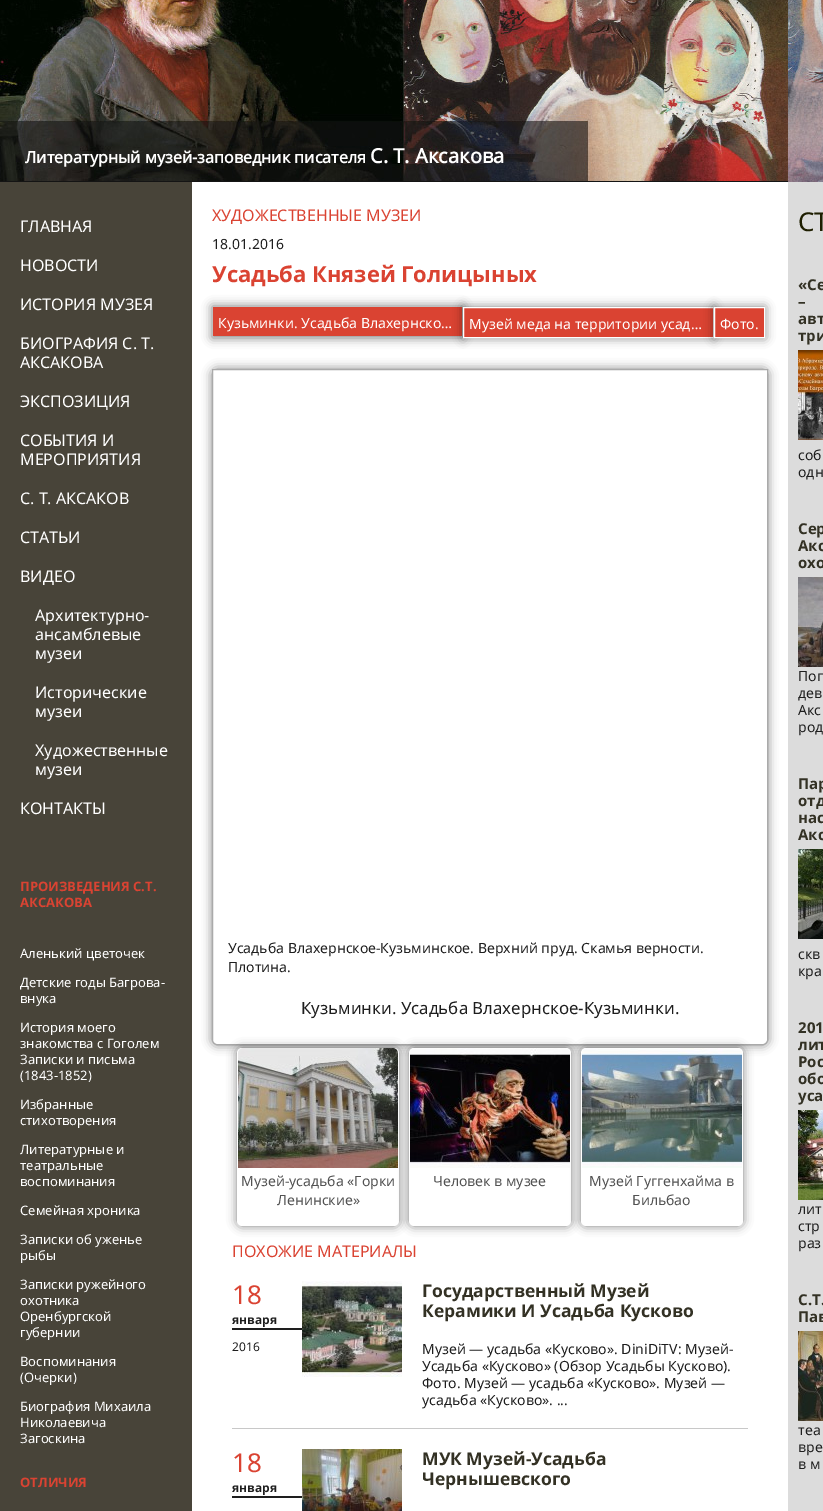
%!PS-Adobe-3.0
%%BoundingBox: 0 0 823 1511
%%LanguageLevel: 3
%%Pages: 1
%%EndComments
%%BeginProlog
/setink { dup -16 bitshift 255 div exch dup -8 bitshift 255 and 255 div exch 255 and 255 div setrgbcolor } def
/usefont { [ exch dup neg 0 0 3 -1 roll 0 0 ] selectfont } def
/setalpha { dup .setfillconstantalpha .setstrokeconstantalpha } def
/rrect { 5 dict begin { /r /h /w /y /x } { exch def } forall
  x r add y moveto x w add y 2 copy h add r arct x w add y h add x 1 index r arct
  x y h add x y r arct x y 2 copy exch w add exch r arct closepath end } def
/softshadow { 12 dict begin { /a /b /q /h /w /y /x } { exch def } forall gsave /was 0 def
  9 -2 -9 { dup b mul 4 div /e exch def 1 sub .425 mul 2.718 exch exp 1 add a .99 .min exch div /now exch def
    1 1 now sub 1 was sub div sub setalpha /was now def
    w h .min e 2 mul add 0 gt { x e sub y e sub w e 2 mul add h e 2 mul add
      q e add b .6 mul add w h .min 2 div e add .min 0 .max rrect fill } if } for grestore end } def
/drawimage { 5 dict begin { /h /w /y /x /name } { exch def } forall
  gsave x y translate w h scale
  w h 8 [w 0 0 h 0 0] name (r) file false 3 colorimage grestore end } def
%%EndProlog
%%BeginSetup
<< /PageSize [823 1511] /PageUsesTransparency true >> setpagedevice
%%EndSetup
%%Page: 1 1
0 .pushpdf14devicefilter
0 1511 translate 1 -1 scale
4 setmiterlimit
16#141414 setink
0 0 823 1511 rectfill
(img1.raw) 0 0 788 181 drawimage
/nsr-Bold 16 usefont
16#FFFFFF setink
25 163 moveto (Литературный музей-заповедник писателя) show
/nsr-Bold 20 usefont
370 163 moveto (С. Т. Аксакова) show
(img2.raw) 788 0 35 182 drawimage
(img3.raw) 0 182 823 1329 drawimage
/nsr-Regular 16 usefont
[
    [(ГЛАВНАЯ) 20 232]
    [(НОВОСТИ) 20 271]
    [(ИСТОРИЯ МУЗЕЯ) 20 310]
    [(БИОГРАФИЯ С. Т.) 20 349]
    [(АКСАКОВА) 20 368]
    [(ЭКСПОЗИЦИЯ) 20 407]
    [(СОБЫТИЯ И) 20 446]
    [(МЕРОПРИЯТИЯ) 20 465]
    [(С. Т. АКСАКОВ) 20 504]
    [(СТАТЬИ) 20 543]
    [(ВИДЕО) 20 582]
    [(Архитектурно-) 35 621]
    [(ансамблевые) 35 640]
    [(музеи) 35 659]
    [(Исторические) 35 698]
    [(музеи) 35 717]
    [(Художественные) 35 756]
    [(музеи) 35 775]
    [(КОНТАКТЫ) 20 814]
] { aload pop moveto show } forall
/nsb-Bold 13 usefont
16#DA4332 setink
20 891 moveto (ПРОИЗВЕДЕНИЯ С.Т.) show
20 907 moveto (АКСАКОВА) show
/nsr-Regular 13 usefont
16#FFFFFF setink
[
    [(Аленький цветочек) 20 958]
    [(Детские годы Багрова-) 20 987]
    [(внука) 20 1003]
    [(История моего) 20 1032]
    [(знакомства с Гоголем) 20 1048]
    [(Записки и письма) 20 1064]
    [(\(1843-1852\)) 20 1080]
    [(Избранные) 20 1109]
    [(стихотворения) 20 1125]
    [(Литературные и) 20 1154]
    [(театральные) 20 1170]
    [(воспоминания) 20 1186]
    [(Семейная хроника) 20 1215]
    [(Записки об уженье) 20 1244]
    [(рыбы) 20 1260]
    [(Записки ружейного) 20 1289]
    [(охотника) 20 1305]
    [(Оренбургской) 20 1321]
    [(губернии) 20 1337]
    [(Воспоминания) 20 1366]
    [(\(Очерки\)) 20 1382]
    [(Биография Михаила) 20 1411]
    [(Николаевича) 20 1427]
    [(Загоскина) 20 1443]
] { aload pop moveto show } forall
/nsb-Bold 13 usefont
16#DA4332 setink
20 1487 moveto (ОТЛИЧИЯ) show
/nsr-Regular 16 usefont
212 221 moveto (ХУДОЖЕСТВЕННЫЕ МУЗЕИ) show
/nsr-Regular 14 usefont
16#1E1E1E setink
212 249 moveto (18.01.2016) show
/nsb-Bold 22 usefont
16#DA4332 setink
212 282 moveto (Усадьба Князей Голицыных) show
16#000000 setink
212 306 251 32 0 5 0.5 softshadow
16#DA4332 setink
213 307 249 29 rectfill
/nsr-Regular 14 usefont
16#FFFFFF setink
218 328 moveto (Кузьминки. Усадьба Влахернско…) show
16#000000 setink
463 307 251 31 0 5 0.5 softshadow
16#DA4332 setink
463.5 307.5 moveto 713.5 307.5 lineto 713.5 337.5 lineto 463.5 337.5 lineto closepath gsave fill grestore
16#FFFFFF setink
stroke
469 329 moveto (Музей меда на территории усад…) show
16#000000 setink
714 307 51 31 0 5 0.5 softshadow
16#DA4332 setink
714.5 307.5 moveto 764.5 307.5 lineto 764.5 337.5 lineto 714.5 337.5 lineto closepath gsave fill grestore
16#FFFFFF setink
stroke
720 329 moveto (Фото.) show
gsave
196 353 moveto 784 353 lineto 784 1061 lineto 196 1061 lineto closepath 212 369 moveto 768 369 lineto 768 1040 lineto 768 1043 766 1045 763 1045 curveto 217 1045 lineto 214 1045 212 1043 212 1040 curveto closepath eoclip newpath
16#000000 setink
212 369 556 676 5 5 0.5 softshadow
grestore
16#AAAAAA setink
212.5 369.5 moveto 767.5 369.5 lineto 767.5 1040 lineto 767.5 1042.5 765.5 1044.5 763 1044.5 curveto 217 1044.5 lineto 214.5 1044.5 212.5 1042.5 212.5 1040 curveto closepath stroke
16#1E1E1E setink
228 953 moveto (Усадьба Влахернское-Кузьминское. Верхний пруд. Скамья верности.) show
228 972 moveto (Плотина.) show
/nsr-Regular 16.8 usefont
301 1014 moveto (Кузьминки. Усадьба Влахернское-Кузьминки.) show
16#000000 setink
237 1048 162 178 5 5 0.5 softshadow
16#FFFFFF setink
237 1048 162 178 5 rrect fill
(img4.raw) 238 1048 160 120 drawimage
16#000000 setink
409 1048 162 178 5 5 0.5 softshadow
/nsr-Regular 14 usefont
16#525252 setink
241 1186 moveto (Музей-усадьба «Горки) show
277 1205 moveto (Ленинские») show
16#FFFFFF setink
409 1048 162 178 5 rrect fill
(img5.raw) 410 1048 160 120 drawimage
16#525252 setink
433 1186 moveto (Человек в музее) show
16#000000 setink
581 1048 162 178 5 5 0.5 softshadow
16#FFFFFF setink
581 1048 162 178 5 rrect fill
(img6.raw) 582 1048 160 120 drawimage
16#525252 setink
589 1186 moveto (Музей Гуггенхайма в) show
632 1205 moveto (Бильбао) show
/nsr-Regular 16 usefont
16#DA4332 setink
232 1257 moveto (ПОХОЖИЕ МАТЕРИАЛЫ) show
16#1E1E1E setink
232 1328 70 2 rectfill
/nsr-Regular 26 usefont
16#DA4332 setink
232 1304 moveto (18) show
/nsb-Bold 12 usefont
16#1E1E1E setink
232 1324 moveto (января) show
/nsr-Regular 12 usefont
232 1351 moveto (2016) show
(img7.raw) 302 1281 100 96 drawimage
/nsb-Bold 17.5 usefont
16#333124 setink
422 1297 moveto (Государственный Музей) show
422 1317 moveto (Керамики И Усадьба Кусково) show
/nsr-Regular 14 usefont
16#1E1E1E setink
[
    [(Музей — усадьба «Кусково». DiniDiTV: Музей-) 422 1354]
    [(Усадьба «Кусково» \(Обзор Усадьбы Кусково\).) 422 1371]
    [(Фото. Музей — усадьба «Кусково». Музей —) 422 1388]
    [(усадьба «Кусково». ...) 422 1405]
] { aload pop moveto show } forall
16#C8C8C8 setink
232 1428 516 1 rectfill
16#1E1E1E setink
232 1496 70 2 rectfill
/nsr-Regular 26 usefont
16#DA4332 setink
232 1472 moveto (18) show
/nsb-Bold 12 usefont
16#1E1E1E setink
232 1492 moveto (января) show
(img8.raw) 302 1449 100 62 drawimage
/nsb-Bold 17.5 usefont
16#333124 setink
422 1465 moveto (МУК Музей-Усадьба) show
422 1485 moveto (Чернышевского) show
/nsr-Regular 26 usefont
16#1E1E00 setink
798 231 moveto (СТ) show
/nsb-Bold 15 usefont
16#333124 setink
[
    [(«Се) 798 290]
    [(–) 798 307]
    [(авт) 798 324]
    [(три) 798 341]
] { aload pop moveto show } forall
(img9.raw) 798 350 25 90 drawimage
/nsr-Regular 14 usefont
16#1E1E1E setink
798 460 moveto (соб) show
798 477 moveto (одн) show
/nsb-Bold 15 usefont
16#333124 setink
[
    [(Сер) 798 534]
    [(Акс) 798 551]
    [(охо) 798 568]
] { aload pop moveto show } forall
(img10.raw) 798 577 25 90 drawimage
/nsr-Regular 14 usefont
16#1E1E1E setink
[
    [(Поп) 798 681]
    [(дев) 798 698]
    [(Акс) 798 715]
    [(род) 798 732]
] { aload pop moveto show } forall
/nsb-Bold 15 usefont
16#333124 setink
[
    [(Пар) 798 789]
    [(отд) 798 806]
    [(нас) 798 823]
    [(Акс) 798 840]
] { aload pop moveto show } forall
(img11.raw) 798 849 25 90 drawimage
/nsr-Regular 14 usefont
16#1E1E1E setink
798 959 moveto (скв) show
798 976 moveto (кра) show
/nsb-Bold 15 usefont
16#333124 setink
[
    [(201) 798 1033]
    [(лит) 798 1050]
    [(Рос) 798 1067]
    [(обо) 798 1084]
    [(уса) 798 1101]
] { aload pop moveto show } forall
(img12.raw) 798 1110 25 90 drawimage
/nsr-Regular 14 usefont
16#1E1E1E setink
[
    [(лит) 798 1214]
    [(стр) 798 1231]
    [(раз) 798 1248]
] { aload pop moveto show } forall
/nsb-Bold 15 usefont
16#333124 setink
798 1305 moveto (С.Т.) show
798 1322 moveto (Пав) show
(img13.raw) 798 1331 25 90 drawimage
/nsr-Regular 14 usefont
16#1E1E1E setink
[
    [(теа) 798 1435]
    [(вре) 798 1452]
    [(в м) 798 1469]
] { aload pop moveto show } forall
.poppdf14devicefilter showpage
%%EOF
